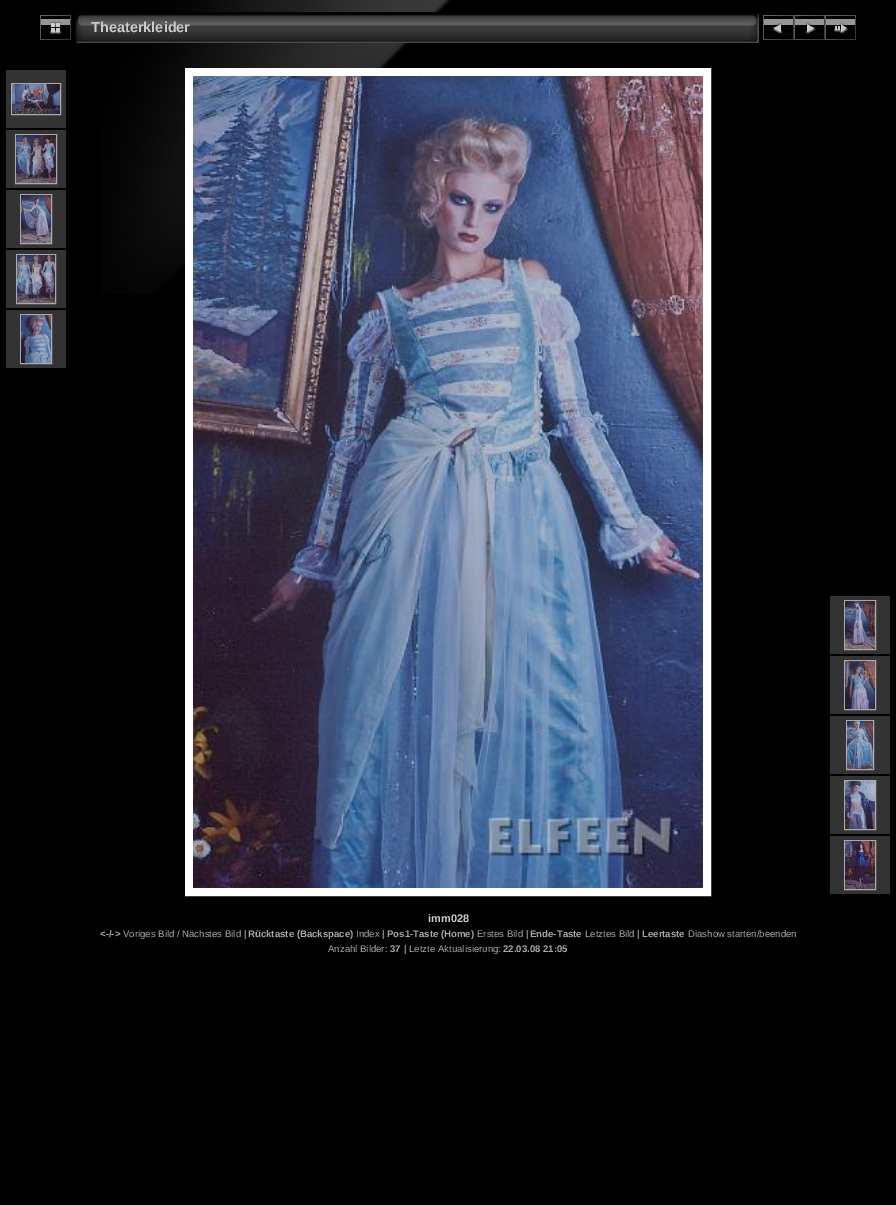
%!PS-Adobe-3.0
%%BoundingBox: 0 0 896 1205
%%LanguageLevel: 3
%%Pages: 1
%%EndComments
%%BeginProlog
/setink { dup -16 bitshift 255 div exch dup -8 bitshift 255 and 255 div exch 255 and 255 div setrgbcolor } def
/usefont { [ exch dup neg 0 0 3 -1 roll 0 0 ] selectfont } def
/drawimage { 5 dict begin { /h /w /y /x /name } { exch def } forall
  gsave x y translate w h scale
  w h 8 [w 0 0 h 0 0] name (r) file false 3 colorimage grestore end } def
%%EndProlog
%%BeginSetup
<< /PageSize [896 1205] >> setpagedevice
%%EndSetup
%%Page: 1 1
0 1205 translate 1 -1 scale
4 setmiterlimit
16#000000 setink
0 0 896 1205 rectfill
(img1.raw) 102 0 349 294 drawimage
(img2.raw) 40 15 31 25 drawimage
(img3.raw) 75 14 16 29 drawimage
(img4.raw) 91 12 652 31 drawimage
/LiberationSans-Bold 14.5 usefont
16#CCCCCC setink
91 32 moveto (Theaterkleider) show
(img5.raw) 743 13 16 30 drawimage
(img6.raw) 763 15 31 25 drawimage
(img7.raw) 794 15 31 25 drawimage
(img8.raw) 825 15 31 25 drawimage
16#333333 setink
6 70 60 58 rectfill
16#AAAAAA setink
11.5 83.5 49 31 rectstroke
(img9.raw) 12 84 48 30 drawimage
16#333333 setink
6 130 60 58 rectfill
16#AAAAAA setink
15.5 134.5 41 49 rectstroke
(img10.raw) 16 135 40 48 drawimage
16#333333 setink
6 190 60 58 rectfill
16#AAAAAA setink
20.5 194.5 31 49 rectstroke
(img11.raw) 21 195 30 48 drawimage
16#333333 setink
6 250 60 58 rectfill
16#AAAAAA setink
16.5 254.5 39 49 rectstroke
(img12.raw) 17 255 38 48 drawimage
16#333333 setink
6 310 60 58 rectfill
16#AAAAAA setink
20.5 314.5 31 49 rectstroke
(img13.raw) 21 315 30 48 drawimage
16#FFFFFF setink
8 setlinewidth
189 72 518 820 rectstroke
(img14.raw) 193 76 510 812 drawimage
16#333333 setink
830 596 60 58 rectfill
16#AAAAAA setink
1 setlinewidth
844.5 600.5 31 49 rectstroke
(img15.raw) 845 601 30 48 drawimage
16#333333 setink
830 656 60 58 rectfill
16#AAAAAA setink
844.5 660.5 31 49 rectstroke
(img16.raw) 845 661 30 48 drawimage
16#333333 setink
830 716 60 58 rectfill
16#AAAAAA setink
846.5 720.5 27 49 rectstroke
(img17.raw) 847 721 26 48 drawimage
16#333333 setink
830 776 60 58 rectfill
16#AAAAAA setink
844.5 780.5 31 49 rectstroke
(img18.raw) 845 781 30 48 drawimage
16#333333 setink
830 836 60 58 rectfill
16#AAAAAA setink
844.5 840.5 31 49 rectstroke
(img19.raw) 845 841 30 48 drawimage
/LiberationSans-Bold 11 usefont
16#CCCCCC setink
428 922 moveto (imm028) show
/LiberationSans-Bold 9.6 usefont
16#AAAAAA setink
100 937 moveto (<-/->) show
/LiberationSans-Regular 9.6 usefont
123 937 moveto (Voriges Bild / Nächstes Bild |) show
/LiberationSans-Bold 9.6 usefont
248 937 moveto (Rücktaste \(Backspace\)) show
/LiberationSans-Regular 9.6 usefont
356 937 moveto (Index |) show
/LiberationSans-Bold 9.6 usefont
387 937 moveto (Pos1-Taste \(Home\)) show
/LiberationSans-Regular 9.6 usefont
477 937 moveto (Erstes Bild |) show
/LiberationSans-Bold 9.6 usefont
530 937 moveto (Ende-Taste) show
/LiberationSans-Regular 9.6 usefont
585 937 moveto (Letztes Bild |) show
/LiberationSans-Bold 9.6 usefont
642 937 moveto (Leertaste) show
/LiberationSans-Regular 9.6 usefont
688 937 moveto (Diashow starten/beenden) show
328 952 moveto (Anzahl Bilder:) show
/LiberationSans-Bold 9.6 usefont
390 952 moveto (37) show
/LiberationSans-Regular 9.6 usefont
404 952 moveto (| Letzte Aktualisierung:) show
/LiberationSans-Bold 9.6 usefont
503 952 moveto (22.03.08 21:05) show
showpage
%%EOF
